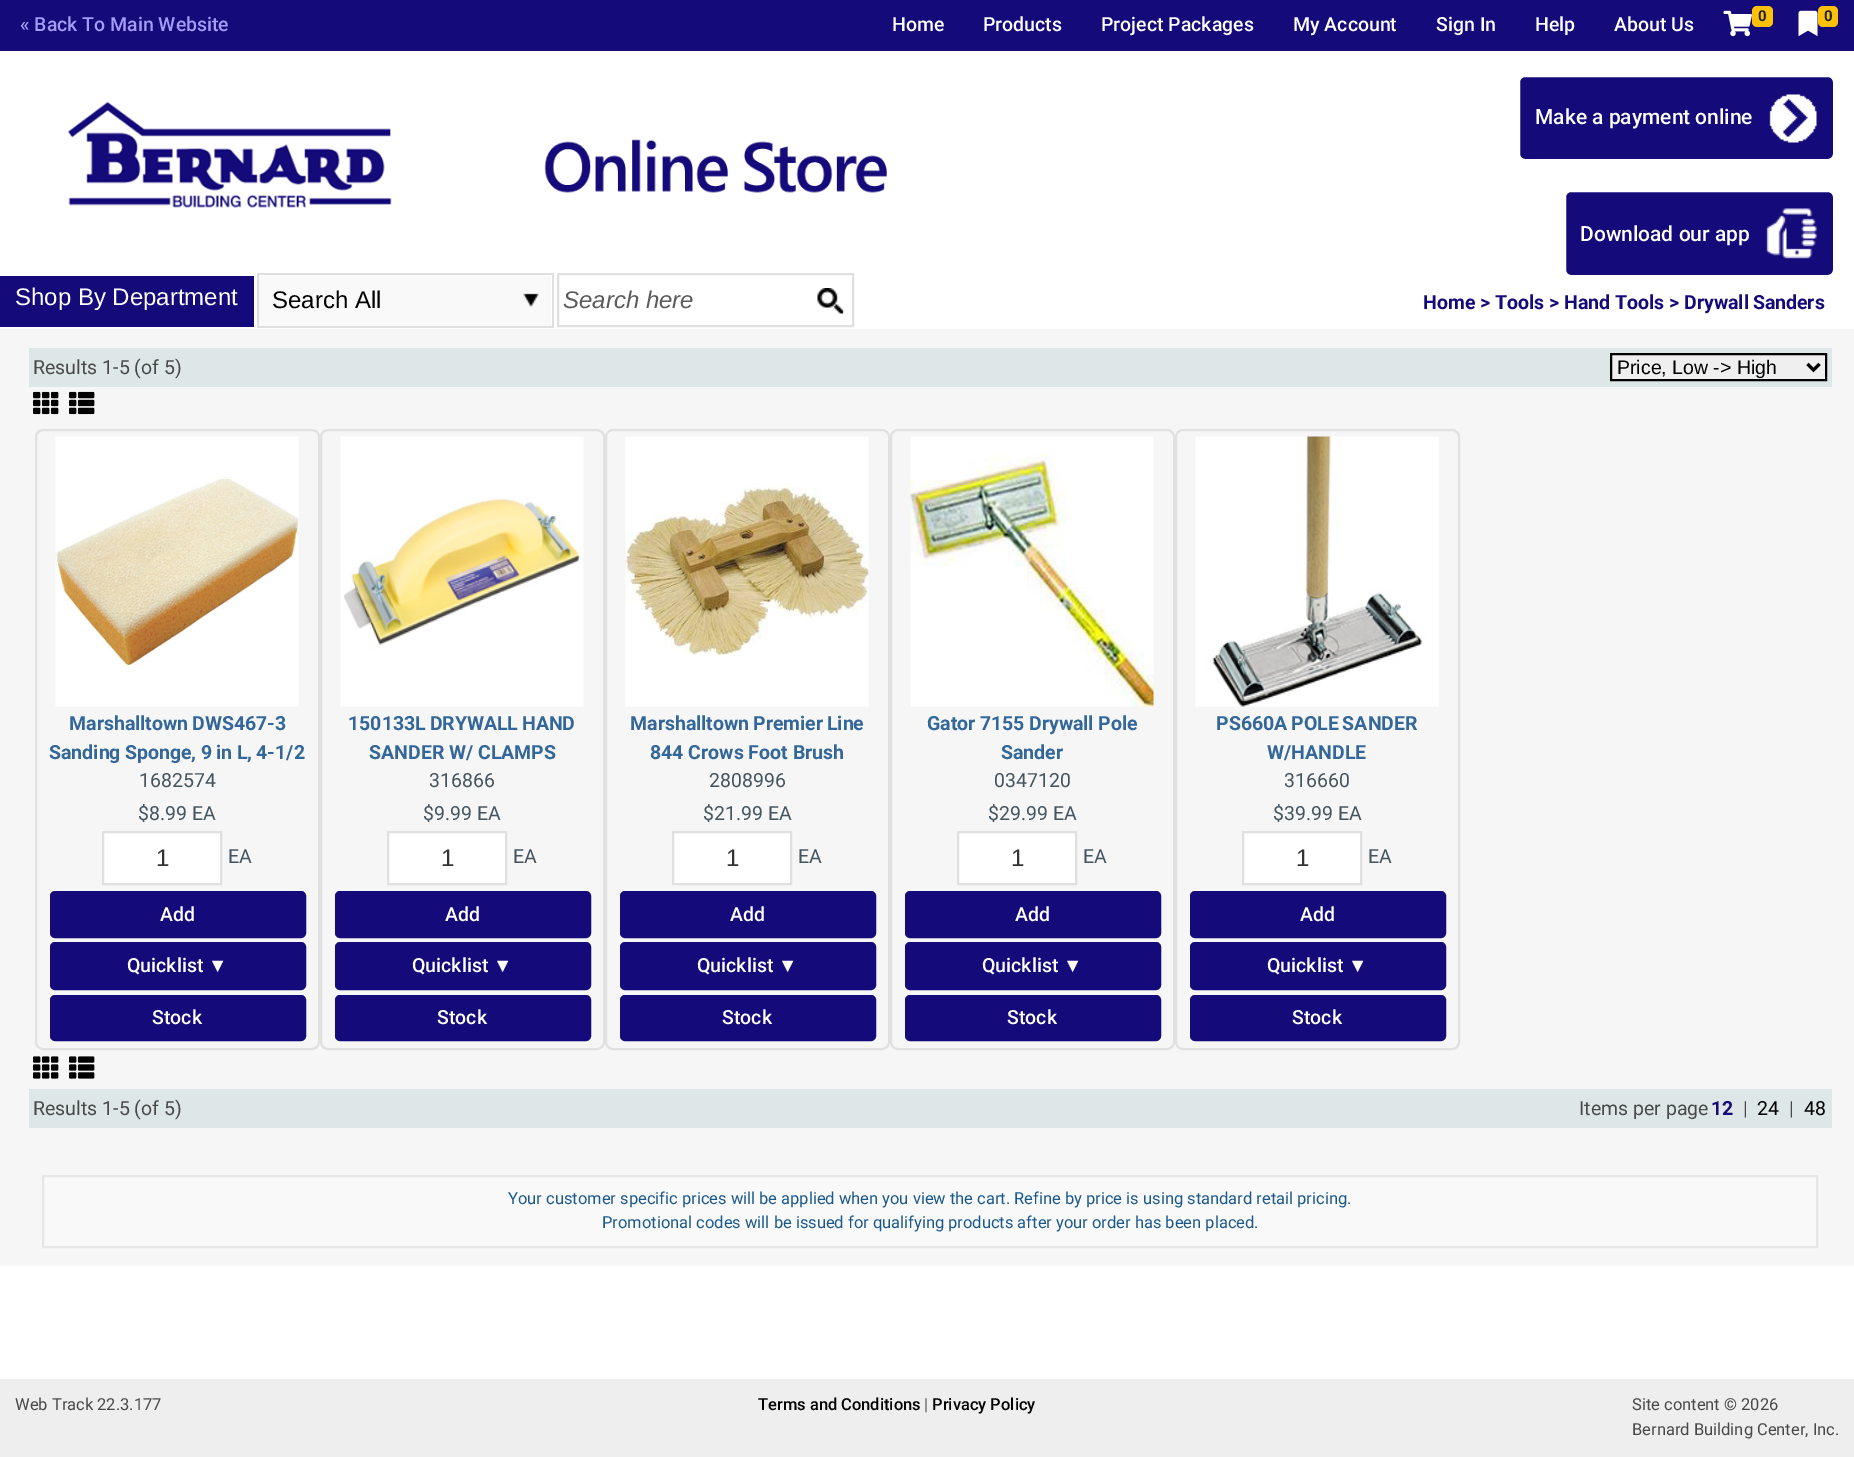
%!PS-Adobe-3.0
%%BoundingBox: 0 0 1854 1457
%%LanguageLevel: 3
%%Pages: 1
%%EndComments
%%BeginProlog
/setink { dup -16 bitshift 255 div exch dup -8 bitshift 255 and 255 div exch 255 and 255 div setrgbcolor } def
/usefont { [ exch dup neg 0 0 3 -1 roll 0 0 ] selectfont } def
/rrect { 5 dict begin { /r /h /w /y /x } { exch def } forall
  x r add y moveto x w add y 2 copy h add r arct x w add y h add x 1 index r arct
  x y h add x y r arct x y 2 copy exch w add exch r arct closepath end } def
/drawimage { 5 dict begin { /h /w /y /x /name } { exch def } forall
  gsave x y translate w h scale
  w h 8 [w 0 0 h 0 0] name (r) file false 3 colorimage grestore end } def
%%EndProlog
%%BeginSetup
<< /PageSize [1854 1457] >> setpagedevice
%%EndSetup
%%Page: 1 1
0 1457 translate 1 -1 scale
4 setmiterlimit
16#FFFFFF setink
0 0 1854 1457 rectfill
16#150A7A setink
0 0 1854 51 rectfill
/Roboto-Medium 19.5 usefont
16#A59CF6 setink
20 31 moveto (« Back To Main Website) show
16#FFFFFF setink
[
    [(Home) 892 31]
    [(Products) 983 31]
    [(Project Packages) 1101 31]
    [(My Account) 1293 31]
    [(Sign In) 1436 31]
    [(Help) 1535 31]
    [(About Us) 1614 31]
] { aload pop moveto show } forall
(img1.raw) 1723 10 29 27 drawimage
16#FFC107 setink
1752 6 21 21 5 rrect fill
/Roboto-Bold 15 usefont
16#212529 setink
1758 21 moveto (0) show
(img2.raw) 1798 10 20 27 drawimage
16#FFC107 setink
1818 6 20 21 5 rrect fill
16#212529 setink
1824 21 moveto (0) show
16#150A7A setink
1518.5 75.5 316 85 6.5 rrect gsave fill grestore
16#FFFFFF setink
3 setlinewidth
stroke
/Roboto-Medium 21 usefont
1535 124 moveto (Make a payment online) show
(img3.raw) 1769 94 48 49 drawimage
16#150A7A setink
1564.5 190.5 270 86 6.5 rrect gsave fill grestore
16#FFFFFF setink
stroke
1580 241 moveto (Download our app) show
(img4.raw) 1766 208 51 51 drawimage
(img5.raw) 67 101 820 107 drawimage
16#150A7A setink
0 276 254 51 rectfill
/LiberationSans-Regular 24 usefont
16#FFFFFF setink
15 305 moveto (Shop By Department) show
[
    [257 273 297 2 16#E0DFDF]
    [552 273 2 54 16#E0DFDF]
    [257 326 297 2 16#E0DFDF]
    [259 276 292 50 16#F9F9F9]
] { aload pop setink rectfill } forall
(img6.raw) 523 293 16 14 drawimage
16#E0DFDF setink
257 273 2 54 rectfill
16#000000 setink
272 308 moveto (Search All) show
16#E0E0E0 setink
2 setlinewidth
558 274 295 52 rectstroke
/LiberationSans-Italic 24 usefont
16#5C5C5C setink
563 308 moveto (Search here) show
(img7.raw) 817 288 27 26 drawimage
/Roboto-Bold 19.5 usefont
16#150A7A setink
1423 309 moveto (Home > Tools > Hand Tools >) show
1684 309 moveto -1 0 32 (Drywall Sanders) widthshow
16#F6F6F6 setink
0 329 1854 937 rectfill
16#DDE7E8 setink
29 348 1803 39 rectfill
/Roboto-Regular 19.5 usefont
16#494949 setink
33 374 moveto (Results 1-5 \(of 5\)) show
16#EFEFEF setink
1611 354 moveto 1826 354 lineto 1826 380 lineto 1611 380 lineto closepath gsave fill grestore
16#000000 setink
stroke
3 setlinewidth
1807.5 364 moveto 1813.5 370 lineto 1819.5 364 lineto stroke
/LiberationSans-Regular 19.5 usefont
1617 374 moveto (Price, Low -> High) show
(img8.raw) 33 391 26 24 drawimage
(img9.raw) 69 391 26 24 drawimage
16#E1E1E1 setink
2 setlinewidth
36 430 283 619 7 rrect stroke
(img10.raw) 55 436 244 271 drawimage
/Roboto-Bold 19.5 usefont
16#336699 setink
69 730 moveto -1 0 32 (Marshalltown DWS467-3) widthshow
49 759 moveto -0.5 0 32 (Sanding Sponge, 9 in L, 4-1/2) widthshow
/Roboto-Regular 19.5 usefont
16#455560 setink
139 787 moveto (1682574) show
138 820 moveto ($8.99 EA) show
16#FFFFFF setink
103 832 moveto 221 832 lineto 221 884 lineto 103 884 lineto closepath gsave fill grestore
16#E0E0E0 setink
stroke
/LiberationSans-Regular 24 usefont
16#333333 setink
156 866 moveto (1) show
/Roboto-Regular 19.5 usefont
16#455560 setink
228 863 moveto (EA) show
16#150A7A setink
51 892 254 45 4 rrect gsave fill grestore
stroke
/Roboto-Medium 19.5 usefont
16#FFFFFF setink
160 921 moveto (Add) show
16#150A7A setink
51 943 254 46 4 rrect gsave fill grestore
stroke
16#FFFFFF setink
127 972 moveto (Quicklist) show
/LiberationSans-Regular 19.5 usefont
208 972 moveto (▼) show
16#150A7A setink
51 996 254 44 4 rrect gsave fill grestore
stroke
/Roboto-Medium 19.5 usefont
16#FFFFFF setink
152 1024 moveto (Stock) show
16#E1E1E1 setink
321 430 283 619 7 rrect stroke
(img11.raw) 340 436 244 271 drawimage
/Roboto-Bold 19.5 usefont
16#336699 setink
348 730 moveto -1 0 32 (150133L DRYWALL HAND) widthshow
369 759 moveto (SANDER W/ CLAMPS) show
/Roboto-Regular 19.5 usefont
16#455560 setink
429 787 moveto (316866) show
423 820 moveto ($9.99 EA) show
16#FFFFFF setink
388 832 moveto 506 832 lineto 506 884 lineto 388 884 lineto closepath gsave fill grestore
16#E0E0E0 setink
stroke
/LiberationSans-Regular 24 usefont
16#333333 setink
441 866 moveto (1) show
/Roboto-Regular 19.5 usefont
16#455560 setink
513 863 moveto (EA) show
16#150A7A setink
336 892 254 45 4 rrect gsave fill grestore
stroke
/Roboto-Medium 19.5 usefont
16#FFFFFF setink
445 921 moveto (Add) show
16#150A7A setink
336 943 254 46 4 rrect gsave fill grestore
stroke
16#FFFFFF setink
412 972 moveto (Quicklist) show
/LiberationSans-Regular 19.5 usefont
493 972 moveto (▼) show
16#150A7A setink
336 996 254 44 4 rrect gsave fill grestore
stroke
/Roboto-Medium 19.5 usefont
16#FFFFFF setink
437 1024 moveto (Stock) show
16#E1E1E1 setink
606 430 283 619 7 rrect stroke
(img12.raw) 625 436 244 271 drawimage
/Roboto-Bold 19.5 usefont
16#336699 setink
630 730 moveto -1 0 32 (Marshalltown Premier Line) widthshow
650 759 moveto (844 Crows Foot Brush) show
/Roboto-Regular 19.5 usefont
16#455560 setink
709 787 moveto (2808996) show
703 820 moveto ($21.99 EA) show
16#FFFFFF setink
673 832 moveto 791 832 lineto 791 884 lineto 673 884 lineto closepath gsave fill grestore
16#E0E0E0 setink
stroke
/LiberationSans-Regular 24 usefont
16#333333 setink
726 866 moveto (1) show
/Roboto-Regular 19.5 usefont
16#455560 setink
798 863 moveto (EA) show
16#150A7A setink
621 892 254 45 4 rrect gsave fill grestore
stroke
/Roboto-Medium 19.5 usefont
16#FFFFFF setink
730 921 moveto (Add) show
16#150A7A setink
621 943 254 46 4 rrect gsave fill grestore
stroke
16#FFFFFF setink
697 972 moveto (Quicklist) show
/LiberationSans-Regular 19.5 usefont
778 972 moveto (▼) show
16#150A7A setink
621 996 254 44 4 rrect gsave fill grestore
stroke
/Roboto-Medium 19.5 usefont
16#FFFFFF setink
722 1024 moveto (Stock) show
16#E1E1E1 setink
891 430 283 619 7 rrect stroke
(img13.raw) 910 436 244 271 drawimage
/Roboto-Bold 19.5 usefont
16#336699 setink
927 730 moveto -0.5 0 32 (Gator 7155 Drywall Pole) widthshow
1001 759 moveto (Sander) show
/Roboto-Regular 19.5 usefont
16#455560 setink
994 787 moveto (0347120) show
988 820 moveto ($29.99 EA) show
16#FFFFFF setink
958 832 moveto 1076 832 lineto 1076 884 lineto 958 884 lineto closepath gsave fill grestore
16#E0E0E0 setink
stroke
/LiberationSans-Regular 24 usefont
16#333333 setink
1011 866 moveto (1) show
/Roboto-Regular 19.5 usefont
16#455560 setink
1083 863 moveto (EA) show
16#150A7A setink
906 892 254 45 4 rrect gsave fill grestore
stroke
/Roboto-Medium 19.5 usefont
16#FFFFFF setink
1015 921 moveto (Add) show
16#150A7A setink
906 943 254 46 4 rrect gsave fill grestore
stroke
16#FFFFFF setink
982 972 moveto (Quicklist) show
/LiberationSans-Regular 19.5 usefont
1063 972 moveto (▼) show
16#150A7A setink
906 996 254 44 4 rrect gsave fill grestore
stroke
/Roboto-Medium 19.5 usefont
16#FFFFFF setink
1007 1024 moveto (Stock) show
16#E1E1E1 setink
1176 430 283 619 7 rrect stroke
(img14.raw) 1195 436 244 271 drawimage
/Roboto-Bold 19.5 usefont
16#336699 setink
1216 730 moveto -1 0 32 (PS660A POLE SANDER) widthshow
1267 759 moveto (W/HANDLE) show
/Roboto-Regular 19.5 usefont
16#455560 setink
1284 787 moveto (316660) show
1273 820 moveto ($39.99 EA) show
16#FFFFFF setink
1243 832 moveto 1361 832 lineto 1361 884 lineto 1243 884 lineto closepath gsave fill grestore
16#E0E0E0 setink
stroke
/LiberationSans-Regular 24 usefont
16#333333 setink
1296 866 moveto (1) show
/Roboto-Regular 19.5 usefont
16#455560 setink
1368 863 moveto (EA) show
16#150A7A setink
1191 892 254 45 4 rrect gsave fill grestore
stroke
/Roboto-Medium 19.5 usefont
16#FFFFFF setink
1300 921 moveto (Add) show
16#150A7A setink
1191 943 254 46 4 rrect gsave fill grestore
stroke
16#FFFFFF setink
1267 972 moveto (Quicklist) show
/LiberationSans-Regular 19.5 usefont
1348 972 moveto (▼) show
16#150A7A setink
1191 996 254 44 4 rrect gsave fill grestore
stroke
/Roboto-Medium 19.5 usefont
16#FFFFFF setink
1292 1024 moveto (Stock) show
(img15.raw) 33 1056 26 23 drawimage
(img16.raw) 69 1056 26 23 drawimage
16#DDE7E8 setink
29 1089 1803 39 rectfill
/Roboto-Regular 19.5 usefont
16#494949 setink
33 1115 moveto (Results 1-5 \(of 5\)) show
1579 1115 moveto (Items per page) show
/Roboto-Bold 19.5 usefont
16#150A7A setink
1711 1115 moveto (12) show
/Roboto-Regular 19.5 usefont
16#494949 setink
1743 1115 moveto (|) show
16#000000 setink
1757 1115 moveto (24) show
16#494949 setink
1789 1115 moveto (|) show
16#000000 setink
1804 1115 moveto (48) show
16#F9F9F9 setink
43 1176 moveto 1817 1176 lineto 1817 1247 lineto 43 1247 lineto closepath gsave fill grestore
16#E7E7E7 setink
stroke
/Roboto-Regular 16.5 usefont
16#1A598C setink
508 1204 moveto (Your customer specific prices will be applied when you view the cart. Refine by price is using standard retail pricing.) show
602 1228 moveto (Promotional codes will be issued for qualifying products after your order has been placed.) show
16#EEEEEE setink
0 1379 1854 78 rectfill
16#494949 setink
15 1410 moveto (Web Track 22.3.177) show
/Roboto-Medium 16.5 usefont
16#000000 setink
758 1410 moveto (Terms and Conditions) show
/Roboto-Regular 16.5 usefont
16#494949 setink
924 1410 moveto (|) show
/Roboto-Medium 16.5 usefont
16#000000 setink
932 1410 moveto (Privacy Policy) show
/Roboto-Regular 16.5 usefont
16#494949 setink
1632 1410 moveto (Site content © 2026) show
1632 1435 moveto (Bernard Building Center, Inc.) show
showpage
%%EOF
